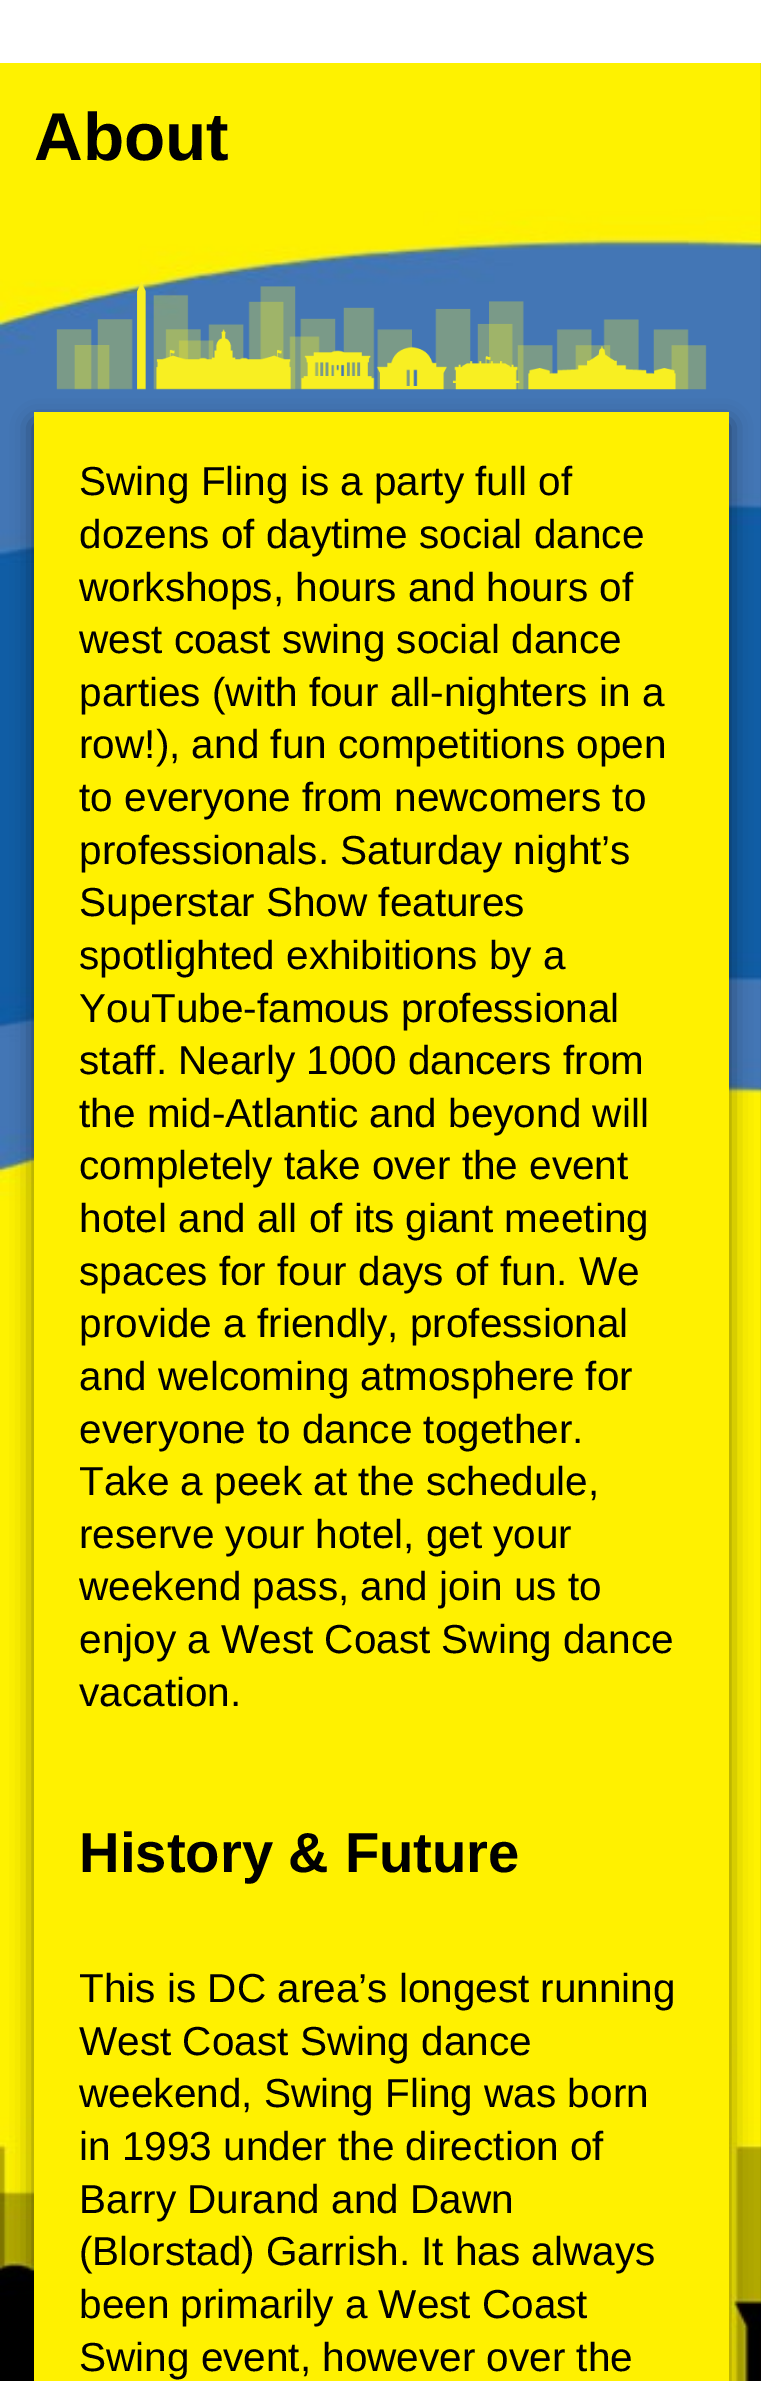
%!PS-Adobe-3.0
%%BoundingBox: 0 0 761 2381
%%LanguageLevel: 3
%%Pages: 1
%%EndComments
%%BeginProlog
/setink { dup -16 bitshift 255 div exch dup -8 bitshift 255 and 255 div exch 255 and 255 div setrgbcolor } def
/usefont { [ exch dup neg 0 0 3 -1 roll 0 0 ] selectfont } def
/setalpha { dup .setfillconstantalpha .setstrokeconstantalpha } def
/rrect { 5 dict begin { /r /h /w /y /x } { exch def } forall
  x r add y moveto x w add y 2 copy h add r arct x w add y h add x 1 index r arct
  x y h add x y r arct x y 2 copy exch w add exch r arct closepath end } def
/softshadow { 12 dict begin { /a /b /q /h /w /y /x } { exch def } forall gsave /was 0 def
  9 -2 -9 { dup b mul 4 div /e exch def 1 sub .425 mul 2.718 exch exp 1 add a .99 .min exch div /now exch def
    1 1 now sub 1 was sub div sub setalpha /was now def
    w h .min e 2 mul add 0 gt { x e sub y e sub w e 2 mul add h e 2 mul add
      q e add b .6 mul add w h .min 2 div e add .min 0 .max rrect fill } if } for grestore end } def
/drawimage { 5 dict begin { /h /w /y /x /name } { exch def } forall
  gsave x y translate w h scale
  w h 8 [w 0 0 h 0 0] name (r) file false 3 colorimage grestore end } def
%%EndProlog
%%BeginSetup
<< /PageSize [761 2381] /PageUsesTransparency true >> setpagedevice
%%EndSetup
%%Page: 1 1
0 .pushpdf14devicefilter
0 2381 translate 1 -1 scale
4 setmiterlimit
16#FFFFFF setink
0 0 761 2381 rectfill
(img1.raw) 0 63 761 2318 drawimage
/LiberationSans-Bold 67.5 usefont
16#000000 setink
34 160 moveto (About) show
(img2.raw) 56 281 651 109 drawimage
34 423 695 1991 0 11 0.5 softshadow
gsave 34 412 moveto 729 412 lineto 729 2381 lineto 34 2381 lineto closepath clip newpath
<< /ShadingType 2 /ColorSpace /DeviceRGB /Coords [-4.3 418 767 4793] /Extend [true true] /Function << /FunctionType 2 /Domain [0 1] /C0 [1 0.945 0] /C1 [1 0.945 0] /N 1 >> >> shfill grestore
/LiberationSans-Regular 40.5 usefont
[
    [(Swing Fling is a party full of) 79 495]
    [(dozens of daytime social dance) 79 548]
    [(workshops, hours and hours of) 79 601]
    [(west coast swing social dance) 79 653]
    [(parties \(with four all-nighters in a) 79 706]
    [(row!\), and fun competitions open) 79 758]
    [(to everyone from newcomers to) 79 811]
    [(professionals. Saturday night’s) 79 864]
    [(Superstar Show features) 79 916]
    [(spotlighted exhibitions by a) 79 969]
    [(YouTube-famous professional) 79 1022]
    [(staff. Nearly 1000 dancers from) 79 1074]
    [(the mid-Atlantic and beyond will) 79 1127]
    [(completely take over the event) 79 1179]
    [(hotel and all of its giant meeting) 79 1232]
    [(spaces for four days of fun. We) 79 1285]
    [(provide a friendly, professional) 79 1337]
    [(and welcoming atmosphere for) 79 1390]
    [(everyone to dance together.) 79 1443]
    [(Take a peek at the schedule,) 79 1495]
    [(reserve your hotel, get your) 79 1548]
    [(weekend pass, and join us to) 79 1600]
    [(enjoy a West Coast Swing dance) 79 1653]
    [(vacation.) 79 1706]
] { aload pop moveto show } forall
/LiberationSans-Bold 56.25 usefont
79 1872 moveto (History & Future) show
/LiberationSans-Regular 40.5 usefont
[
    [(This is DC area’s longest running) 79 2002]
    [(West Coast Swing dance) 79 2055]
    [(weekend, Swing Fling was born) 79 2107]
    [(in 1993 under the direction of) 79 2160]
    [(Barry Durand and Dawn) 79 2213]
    [(\(Blorstad\) Garrish. It has always) 79 2265]
    [(been primarily a West Coast) 79 2318]
    [(Swing event, however over the) 79 2371]
] { aload pop moveto show } forall
.poppdf14devicefilter showpage
%%EOF
